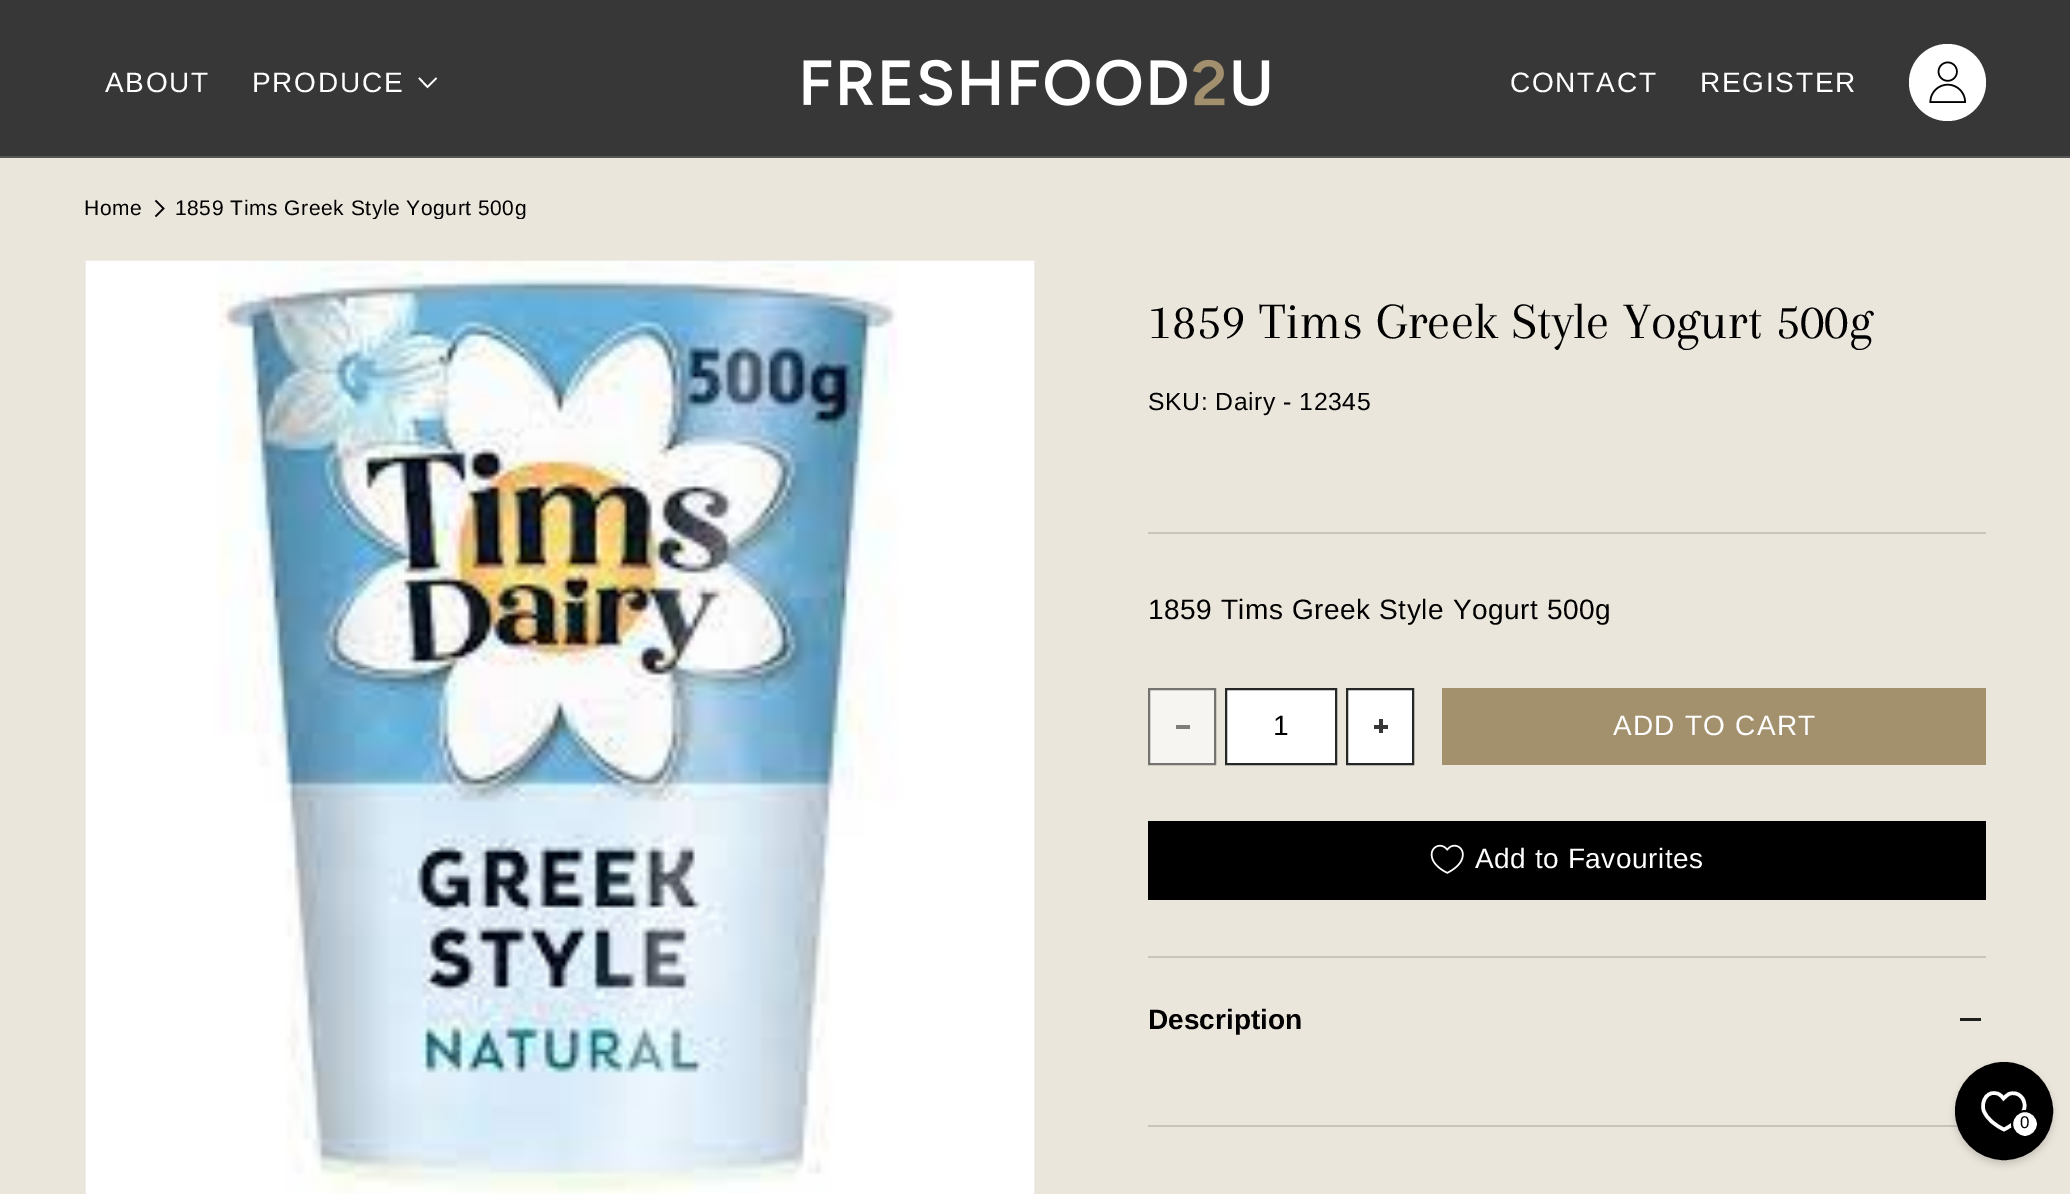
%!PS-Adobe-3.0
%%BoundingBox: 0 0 2070 1194
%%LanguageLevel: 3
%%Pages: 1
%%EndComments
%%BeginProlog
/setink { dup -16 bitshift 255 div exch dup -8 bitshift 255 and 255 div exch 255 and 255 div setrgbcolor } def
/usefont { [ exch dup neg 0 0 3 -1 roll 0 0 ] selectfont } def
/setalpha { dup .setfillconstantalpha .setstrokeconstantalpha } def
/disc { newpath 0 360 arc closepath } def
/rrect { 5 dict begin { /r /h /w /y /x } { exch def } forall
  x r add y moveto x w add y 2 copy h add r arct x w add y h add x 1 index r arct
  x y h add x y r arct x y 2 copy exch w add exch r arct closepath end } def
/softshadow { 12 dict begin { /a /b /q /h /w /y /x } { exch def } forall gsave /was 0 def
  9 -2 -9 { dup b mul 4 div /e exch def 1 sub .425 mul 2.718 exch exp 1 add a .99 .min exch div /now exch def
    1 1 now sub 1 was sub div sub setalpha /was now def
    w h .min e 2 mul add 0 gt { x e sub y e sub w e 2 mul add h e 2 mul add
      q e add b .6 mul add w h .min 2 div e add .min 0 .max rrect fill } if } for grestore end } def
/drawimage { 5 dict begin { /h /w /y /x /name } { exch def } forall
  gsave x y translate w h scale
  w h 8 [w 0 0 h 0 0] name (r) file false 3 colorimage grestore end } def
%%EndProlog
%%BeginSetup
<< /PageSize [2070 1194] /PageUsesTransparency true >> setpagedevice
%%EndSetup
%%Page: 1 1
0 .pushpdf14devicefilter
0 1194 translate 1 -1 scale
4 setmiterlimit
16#EBE6DC setink
0 0 2070 1194 rectfill
16#373737 setink
0 0 2070 156 rectfill
/LiberationSans-Regular 28 usefont
16#FFFFFF setink
105 92 moveto 1.75 0 (ABOUT) ashow
252 92 moveto 1.75 0 (PRODUCE) ashow
1.7 setlinewidth
436.5 78 moveto 427.5 87 lineto 419 78 lineto stroke
(img1.raw) 803 59 467 47 drawimage
1510 92 moveto 1.75 0 (CONTACT) ashow
1700 92 moveto 1.75 0 (REGISTER) ashow
1947.5 82.5 38.5 disc fill
(img2.raw) 1929 61 37 42 drawimage
16#555555 setink
0 156 2070 2 rectfill
/LiberationSans-Regular 21 usefont
16#000000 setink
84 215 moveto 0.55 0 (Home) ashow
1.6 setlinewidth
155.5 200.5 moveto 163.5 208.5 lineto 155.5 216.5 lineto stroke
gsave
175 198 352 21 rectclip
175 215 moveto 0.55 0 (1859 Tims Greek Style Yogurt 500g) ashow
grestore
(img3.raw) 85 260 950 934 drawimage
/Arapey-Regular 52.75 usefont
1148 338 moveto (1859 Tims Greek Style Yogurt 500g) show
/LiberationSans-Regular 24.75 usefont
1148 410 moveto 0.55 0 (SKU: Dairy - 12345) ashow
16#C8C4BB setink
1148 532 838 2 rectfill
/LiberationSans-Regular 28 usefont
16#000000 setink
1148 619 moveto 0.55 0 (1859 Tims Greek Style Yogurt 500g) ashow
16#F7F5F1 setink
1149 689 moveto 1215 689 lineto 1215 764 lineto 1149 764 lineto closepath gsave fill grestore
16#75736F setink
2 setlinewidth
stroke
16#7F7D79 setink
1176 725 14 4 rectfill
16#FFFFFF setink
1226 689 moveto 1336 689 lineto 1336 764 lineto 1226 764 lineto closepath gsave fill grestore
16#262727 setink
stroke
16#000000 setink
1273 735 moveto (1) show
16#FFFFFF setink
1347 689 moveto 1413 689 lineto 1413 764 lineto 1347 764 lineto closepath gsave fill grestore
16#262727 setink
stroke
16#373737 setink
1374 725 14 4 rectfill
1379 719 4 14 rectfill
gsave 1442 688 moveto 1986 688 lineto 1986 765 lineto 1442 765 lineto closepath clip newpath
<< /ShadingType 2 /ColorSpace /DeviceRGB /Coords [392 532 1948 920] /Extend [true true] /Function << /FunctionType 3 /Domain [0 1] /Functions [<< /FunctionType 2 /Domain [0 1] /C0 [0.718 0.659 0.549] /C1 [0.718 0.659 0.549] /N 1 >> << /FunctionType 2 /Domain [0 1] /C0 [0.639 0.565 0.427] /C1 [0.639 0.565 0.427] /N 1 >>] /Bounds [0.6] /Encode [0 1 0 1] >> >> shfill grestore
16#FFFFFF setink
1613 735 moveto 1.25 0 (ADD TO CART) ashow
16#000000 setink
1148 821 838 79 rectfill
(img4.raw) 1430 844 34 30 drawimage
16#FFFFFF setink
1475 868 moveto 0.55 0 (Add to Favourites) ashow
16#C8C4BB setink
1148 956 838 2 rectfill
1148 1125 810 2 rectfill
/LiberationSans-Bold 28 usefont
16#000000 setink
1148 1029 moveto (Description) show
16#1F1F1D setink
1960 1018 21 3 rectfill
16#000000 setink
1955 1066 98 98 49 3.5 0.15 softshadow
2004 1111 47 disc gsave fill grestore
4 setlinewidth
stroke
16#FFFFFF setink
3.5 setlinewidth
2004 1129.5 moveto 1995.5 1125.5 1986.5 1119 1983.5 1110 curveto 1981 1100.5 1988 1089.5 1998.5 1094 curveto 2000.5 1095 2002 1096.5 2003.5 1098.5 curveto 2005.5 1096.5 2007 1095 2009 1094 curveto 2018 1090.5 2025.5 1098.5 2024.5 1107 curveto 2023 1117.5 2013 1125 2004 1129.5 curveto closepath stroke
2025 1124 13 disc gsave fill grestore
16#000000 setink
2 setlinewidth
stroke
/LiberationSans-Regular 17 usefont
2020 1128 moveto 0.55 0 (0) ashow
.poppdf14devicefilter showpage
%%EOF
